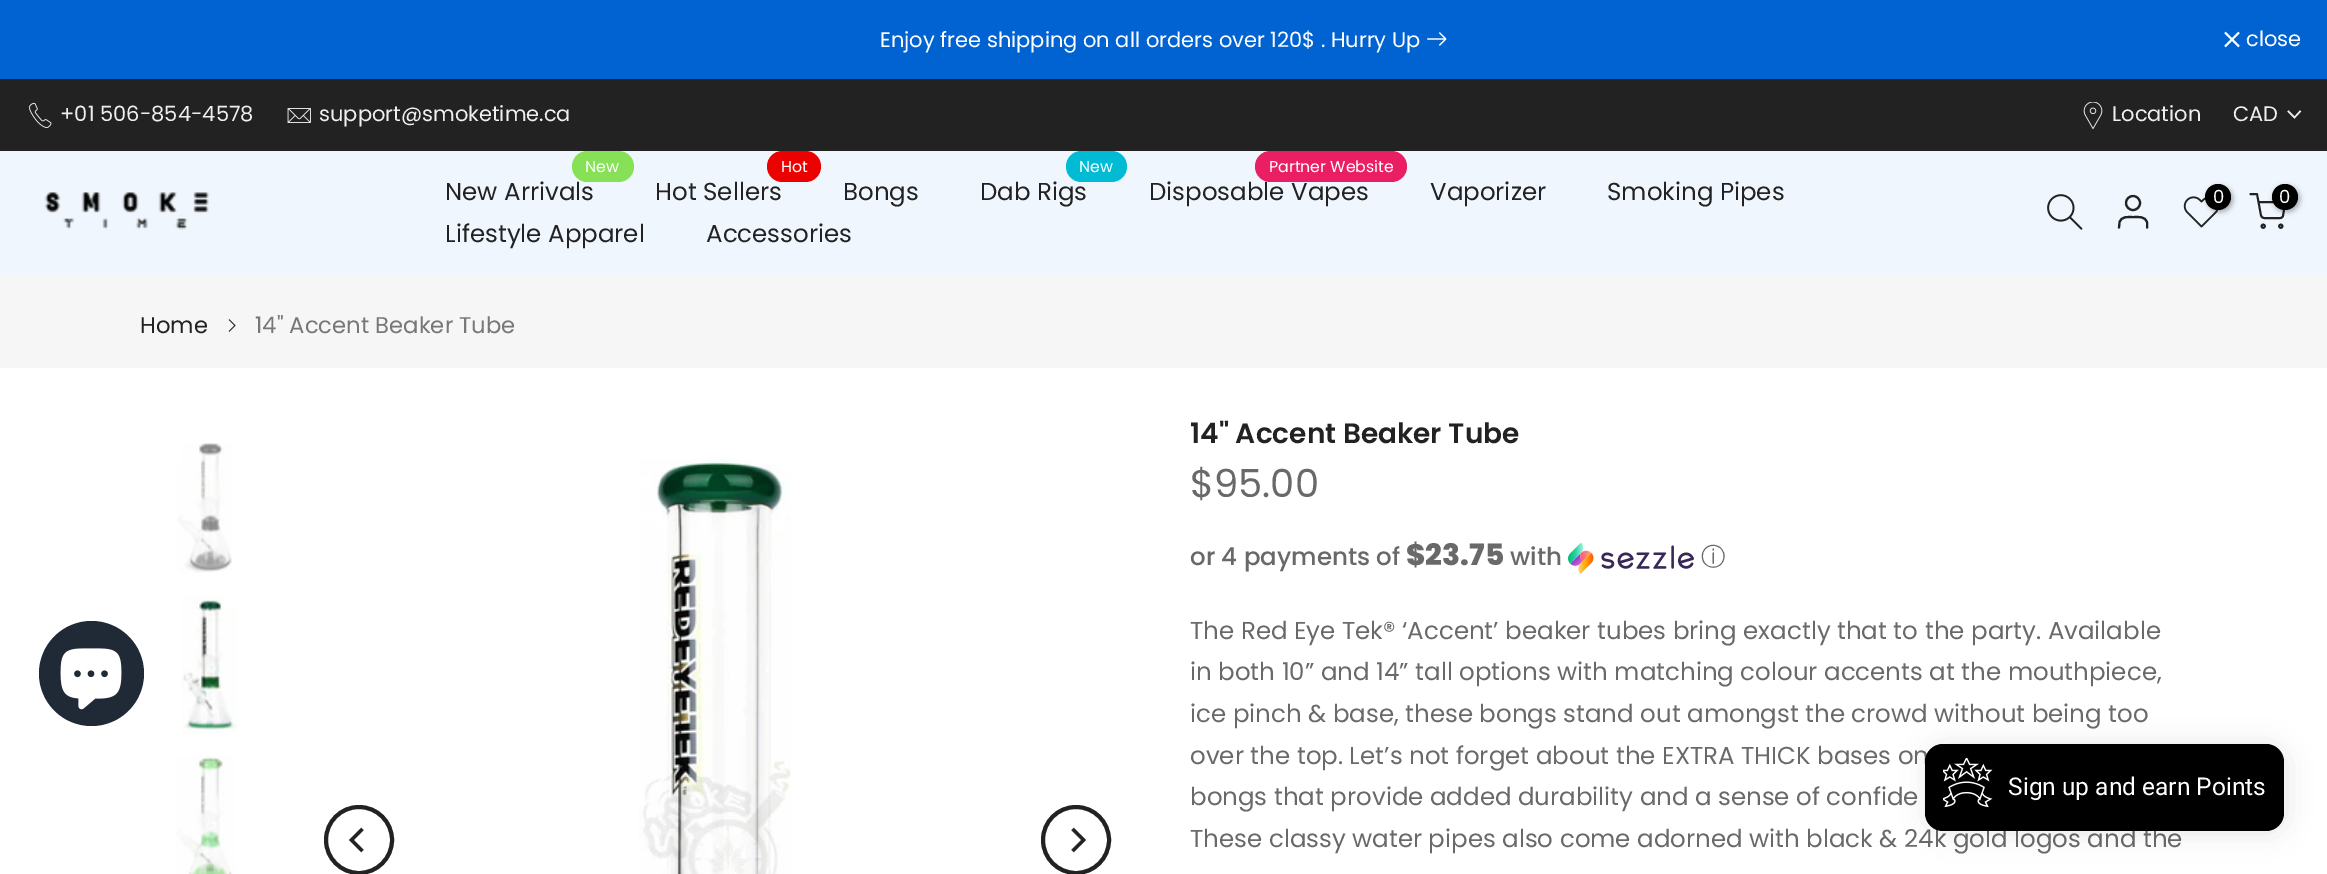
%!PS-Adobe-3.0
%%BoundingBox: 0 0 2327 874
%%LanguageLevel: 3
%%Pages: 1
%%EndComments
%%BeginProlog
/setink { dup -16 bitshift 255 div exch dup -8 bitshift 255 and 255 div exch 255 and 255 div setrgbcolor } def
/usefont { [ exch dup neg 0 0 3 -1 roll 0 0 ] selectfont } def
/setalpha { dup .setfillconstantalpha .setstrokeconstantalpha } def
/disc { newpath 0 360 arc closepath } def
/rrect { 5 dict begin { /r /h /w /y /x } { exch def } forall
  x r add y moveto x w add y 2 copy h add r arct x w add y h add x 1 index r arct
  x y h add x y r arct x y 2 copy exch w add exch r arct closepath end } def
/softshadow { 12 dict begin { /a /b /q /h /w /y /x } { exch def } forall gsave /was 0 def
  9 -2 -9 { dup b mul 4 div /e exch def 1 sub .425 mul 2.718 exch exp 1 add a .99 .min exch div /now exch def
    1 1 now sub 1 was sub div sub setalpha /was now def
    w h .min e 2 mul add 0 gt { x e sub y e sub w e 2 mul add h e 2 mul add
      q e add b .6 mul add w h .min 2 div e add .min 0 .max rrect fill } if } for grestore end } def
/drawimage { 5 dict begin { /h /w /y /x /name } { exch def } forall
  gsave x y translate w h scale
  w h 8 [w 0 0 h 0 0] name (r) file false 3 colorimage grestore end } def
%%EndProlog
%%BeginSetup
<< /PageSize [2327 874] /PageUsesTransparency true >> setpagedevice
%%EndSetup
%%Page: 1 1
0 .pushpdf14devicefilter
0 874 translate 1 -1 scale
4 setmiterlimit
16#FFFFFF setink
0 0 2327 874 rectfill
16#0063D1 setink
0 0 2327 79 rectfill
/Poppins-Regular 21 usefont
16#FFFFFF setink
880 47 moveto (Enjoy free shipping on all orders over 120$ . Hurry Up) show
(img1.raw) 1427 32 20 14 drawimage
2 setlinewidth
2239 32.5 moveto 2225 46.5 lineto 2239 46.5 moveto 2225 32.5 lineto stroke
2246 46 moveto (close) show
16#222222 setink
0 79 2327 72 rectfill
(img2.raw) 29 102 23 27 drawimage
16#EFEFEF setink
60 121 moveto (+01 506-854-4578) show
(img3.raw) 287 108 24 15 drawimage
319 121 moveto (support@smoketime.ca) show
(img4.raw) 2083 102 20 28 drawimage
2112 121 moveto (Location) show
2233 121 moveto (CAD) show
1.5 setlinewidth
2 setlinecap
2300 111.5 moveto 2294.5 117.5 lineto 2288.5 111.5 lineto stroke
16#F0F6FD setink
0 151 2327 122 rectfill
(img5.raw) 44 192 165 38 drawimage
/Poppins-Regular 24.5 usefont
16#222222 setink
445 200 moveto (New Arrivals) show
16#86E156 setink
572 151 62 31 15.5 rrect fill
/Poppins-Regular 15.75 usefont
16#FFFFFF setink
585 172 moveto (New) show
/Poppins-Regular 24.5 usefont
16#222222 setink
655 200 moveto (Hot Sellers) show
16#EC0101 setink
767 151 54 31 15.5 rrect fill
/Poppins-Regular 15.75 usefont
16#FFFFFF setink
781 172 moveto (Hot) show
/Poppins-Regular 24.5 usefont
16#222222 setink
843 200 moveto (Bongs) show
980 200 moveto (Dab Rigs) show
16#01BAD4 setink
1066 151 61 31 15.5 rrect fill
/Poppins-Regular 15.75 usefont
16#FFFFFF setink
1079 172 moveto (New) show
/Poppins-Regular 24.5 usefont
16#222222 setink
1149 200 moveto (Disposable Vapes) show
16#E91E63 setink
1255 151 152 31 15.5 rrect fill
/Poppins-Regular 15.75 usefont
16#FFFFFF setink
1269 172 moveto (Partner Website) show
/Poppins-Regular 24.5 usefont
16#222222 setink
[
    [(Vaporizer) 1430 200]
    [(Smoking Pipes) 1607 200]
    [(Lifestyle Apparel) 445 242]
    [(Accessories) 706 242]
] { aload pop moveto show } forall
(img6.raw) 2047 194 36 36 drawimage
2.1 setlinewidth
0 setlinecap
2133 203 7 disc stroke
1 setlinecap
1 setlinejoin
2147 227.5 moveto 2147 222.5 lineto 2145.5 216 2138.5 217 2133 217 curveto 2128 217 2121 216 2119.5 222.5 curveto 2119 227.5 lineto stroke
(img7.raw) 2183 196 36 32 drawimage
16#000000 setink
2207 186 26 26 13 2.5 0.3 softshadow
2218 197 13 disc fill
/Poppins-Regular 18 usefont
16#FFFFFF setink
2213 203 moveto (0) show
16#222222 setink
1.9 setlinewidth
2250.5 194 moveto 2257 194 lineto 2261 215.5 lineto 2261.5 217 2262.5 218 2264.5 218 curveto 2280 218 lineto 2281.5 218 2283 217 2283 215.5 curveto 2285.5 202 lineto 2258.5 202 lineto stroke
16#000000 setink
2273 186 27 26 13 2.5 0.3 softshadow
2285 197 13 disc fill
16#FFFFFF setink
2279 203 moveto (0) show
16#222222 setink
0 setlinecap
0 setlinejoin
2263.2 226.2 1.6 disc stroke
2280.8 226.2 1.6 disc stroke
16#F6F6F6 setink
0 273 2327 95 rectfill
/Poppins-Regular 22.75 usefont
16#222222 setink
140 333 moveto (Home) show
(img8.raw) 228 319 8 13 drawimage
16#777777 setink
255 333 moveto (14" Accent Beaker Tube) show
(img9.raw) 177 443 55 130 drawimage
(img10.raw) 182 595 55 139 drawimage
(img11.raw) 176 756 60 118 drawimage
16#222222 setink
4 setlinewidth
359 840 33 disc stroke
(img12.raw) 349 827 15 26 drawimage
(img13.raw) 639 459 152 415 drawimage
1076 840 33 disc stroke
(img14.raw) 1071 827 15 26 drawimage
/Poppins-SemiBold 28 usefont
1190 443 moveto (14" Accent Beaker Tube) show
/Poppins-Regular 38.5 usefont
16#696969 setink
1190 497 moveto ($95.00) show
/Poppins-Medium 24.5 usefont
1190 565 moveto (or 4 payments of) show
/Poppins-ExtraBold 29.5 usefont
1406 565 moveto ($23.75) show
/Poppins-Medium 24.5 usefont
1510 565 moveto (with) show
(img15.raw) 1568 543 126 31 drawimage
/WenQuanYiZenHei-Medium 24.5 usefont
1701 565 moveto (ⓘ) show
/Poppins-Regular 24.5 usefont
[
    [(The Red Eye Tek® ‘Accent’ beaker tubes bring exactly that to the party. Available) 1190 639]
    [(in both 10” and 14” tall options with matching colour accents at the mouthpiece,) 1190 680]
    [(ice pinch & base, these bongs stand out amongst the crowd without being too) 1190 722]
    [(over the top. Let’s not forget about the EXTRA THICK bases on) 1190 764]
    [(bongs that provide added durability and a sense of confide) 1190 805]
    [(These classy water pipes also come adorned with black & 24k gold logos and the) 1190 847]
] { aload pop moveto show } forall
16#202A36 setink
91.5 673.5 52.5 disc fill
(img16.raw) 60 648 62 62 drawimage
16#000000 setink
1927 746 359 87 18 13 0.1 softshadow
1925 744 359 87 18 rrect fill
(img17.raw) 1943 758 50 50 drawimage
/Roboto-Regular 24.5 usefont
16#FFFFFF setink
2008 795 moveto (Sign up and earn Points) show
.poppdf14devicefilter showpage
%%EOF
